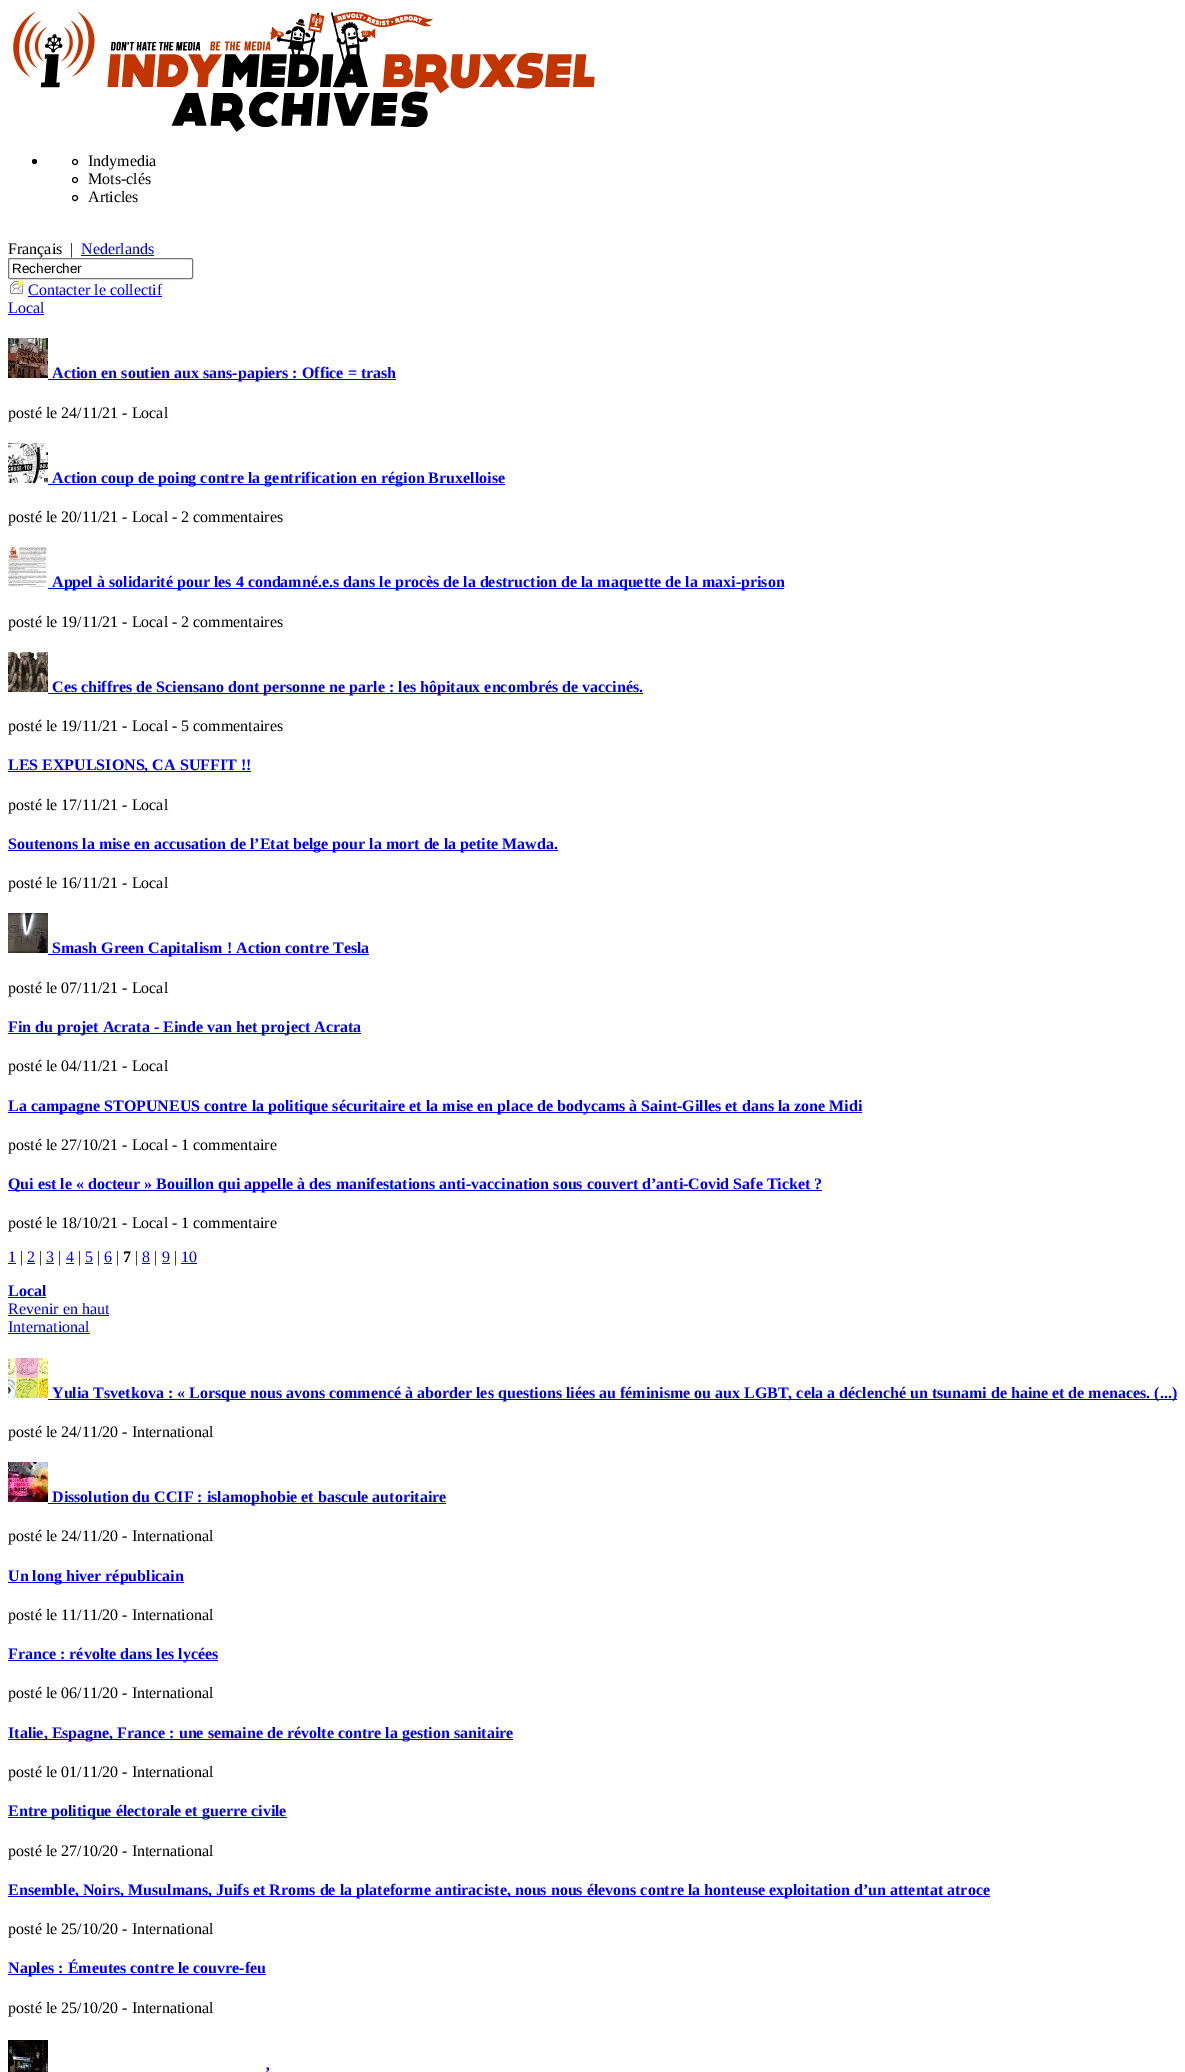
%!PS-Adobe-3.0
%%BoundingBox: 0 0 1185 2072
%%LanguageLevel: 3
%%Pages: 1
%%EndComments
%%BeginProlog
/setink { dup -16 bitshift 255 div exch dup -8 bitshift 255 and 255 div exch 255 and 255 div setrgbcolor } def
/usefont { [ exch dup neg 0 0 3 -1 roll 0 0 ] selectfont } def
/disc { newpath 0 360 arc closepath } def
/rrect { 5 dict begin { /r /h /w /y /x } { exch def } forall
  x r add y moveto x w add y 2 copy h add r arct x w add y h add x 1 index r arct
  x y h add x y r arct x y 2 copy exch w add exch r arct closepath end } def
/drawimage { 5 dict begin { /h /w /y /x /name } { exch def } forall
  gsave x y translate w h scale
  w h 8 [w 0 0 h 0 0] name (r) file false 3 colorimage grestore end } def
%%EndProlog
%%BeginSetup
<< /PageSize [1185 2072] >> setpagedevice
%%EndSetup
%%Page: 1 1
0 2072 translate 1 -1 scale
4 setmiterlimit
16#FFFFFF setink
0 0 1185 2072 rectfill
(img1.raw) 13 12 582 120 drawimage
16#000000 setink
34.5 161.5 2.5 disc fill
75 162 2.5 disc stroke
/LiberationSerif-Regular 16 usefont
88 166 moveto (Indymedia) show
75 180 2.5 disc stroke
88 184 moveto (Mots-clés) show
75 198 2.5 disc stroke
[
    [(Articles) 88 202]
    [(Français) 8 254]
    [(|) 70 254]
] { aload pop moveto show } forall
16#0000EE setink
81 254 moveto (Nederlands) show
81 255 73 1 rectfill
16#767676 setink
8.5 258.5 184 20 1.5 rrect stroke
/LiberationSans-Regular 13.5 usefont
16#000000 setink
12 273 moveto (Rechercher) show
(img2.raw) 10 280 14 14 drawimage
/LiberationSerif-Regular 16 usefont
16#0000EE setink
28 295 moveto (Contacter le collectif) show
28 296 134 1 rectfill
8 313 moveto (Local) show
8 314 36 1 rectfill
(img3.raw) 8 338 40 40 drawimage
48 379 348 1 rectfill
/LiberationSerif-Bold 16 usefont
52 378 moveto (Action en soutien aux sans-papiers : Office = trash) show
/LiberationSerif-Regular 16 usefont
16#000000 setink
8 418 moveto (posté le 24/11/21 - Local) show
(img4.raw) 8 443 40 40 drawimage
16#0000EE setink
48 484 457 1 rectfill
/LiberationSerif-Bold 16 usefont
52 483 moveto (Action coup de poing contre la gentrification en région Bruxelloise) show
/LiberationSerif-Regular 16 usefont
16#000000 setink
8 522 moveto (posté le 20/11/21 - Local - 2 commentaires) show
(img5.raw) 8 547 40 40 drawimage
16#0000EE setink
48 588 736 1 rectfill
/LiberationSerif-Bold 16 usefont
52 587 moveto (Appel à solidarité pour les 4 condamné.e.s dans le procès de la destruction de la maquette de la maxi-prison) show
/LiberationSerif-Regular 16 usefont
16#000000 setink
8 627 moveto (posté le 19/11/21 - Local - 2 commentaires) show
(img6.raw) 8 652 40 40 drawimage
16#0000EE setink
48 693 595 1 rectfill
/LiberationSerif-Bold 16 usefont
52 692 moveto (Ces chiffres de Sciensano dont personne ne parle : les hôpitaux encombrés de vaccinés.) show
/LiberationSerif-Regular 16 usefont
16#000000 setink
8 731 moveto (posté le 19/11/21 - Local - 5 commentaires) show
16#0000EE setink
8 771 243 1 rectfill
/LiberationSerif-Bold 16 usefont
8 770 moveto (LES EXPULSIONS, CA SUFFIT !!) show
/LiberationSerif-Regular 16 usefont
16#000000 setink
8 810 moveto (posté le 17/11/21 - Local) show
16#0000EE setink
8 850 550 1 rectfill
/LiberationSerif-Bold 16 usefont
8 849 moveto (Soutenons la mise en accusation de l’Etat belge pour la mort de la petite Mawda.) show
/LiberationSerif-Regular 16 usefont
16#000000 setink
8 888 moveto (posté le 16/11/21 - Local) show
(img7.raw) 8 913 40 40 drawimage
16#0000EE setink
48 954 321 1 rectfill
/LiberationSerif-Bold 16 usefont
52 953 moveto (Smash Green Capitalism ! Action contre Tesla) show
/LiberationSerif-Regular 16 usefont
16#000000 setink
8 993 moveto (posté le 07/11/21 - Local) show
16#0000EE setink
8 1033 353 1 rectfill
/LiberationSerif-Bold 16 usefont
8 1032 moveto (Fin du projet Acrata - Einde van het project Acrata) show
/LiberationSerif-Regular 16 usefont
16#000000 setink
8 1071 moveto (posté le 04/11/21 - Local) show
16#0000EE setink
8 1112 854 1 rectfill
/LiberationSerif-Bold 16 usefont
8 1111 moveto (La campagne STOPUNEUS contre la politique sécuritaire et la mise en place de bodycams à Saint-Gilles et dans la zone Midi) show
/LiberationSerif-Regular 16 usefont
16#000000 setink
8 1150 moveto (posté le 27/10/21 - Local - 1 commentaire) show
16#0000EE setink
8 1190 814 1 rectfill
/LiberationSerif-Bold 16 usefont
8 1189 moveto (Qui est le « docteur » Bouillon qui appelle à des manifestations anti-vaccination sous couvert d’anti-Covid Safe Ticket ?) show
/LiberationSerif-Regular 16 usefont
16#000000 setink
8 1228 moveto (posté le 18/10/21 - Local - 1 commentaire) show
16#0000EE setink
8 1262 moveto (1) show
8 1263 8 1 rectfill
16#000000 setink
20 1262 moveto (|) show
16#0000EE setink
27 1262 moveto (2) show
27 1263 8 1 rectfill
16#000000 setink
39 1262 moveto (|) show
16#0000EE setink
46 1262 moveto (3) show
46 1263 8 1 rectfill
16#000000 setink
58 1262 moveto (|) show
16#0000EE setink
66 1262 moveto (4) show
66 1263 8 1 rectfill
16#000000 setink
78 1262 moveto (|) show
16#0000EE setink
85 1262 moveto (5) show
85 1263 8 1 rectfill
16#000000 setink
97 1262 moveto (|) show
16#0000EE setink
104 1262 moveto (6) show
104 1263 8 1 rectfill
16#000000 setink
116 1262 moveto (|) show
/LiberationSerif-Bold 16 usefont
123 1262 moveto (7) show
/LiberationSerif-Regular 16 usefont
135 1262 moveto (|) show
16#0000EE setink
142 1262 moveto (8) show
142 1263 8 1 rectfill
16#000000 setink
154 1262 moveto (|) show
16#0000EE setink
162 1262 moveto (9) show
162 1263 8 1 rectfill
16#000000 setink
174 1262 moveto (|) show
16#0000EE setink
181 1262 moveto (10) show
181 1263 16 1 rectfill
/LiberationSerif-Bold 16 usefont
8 1296 moveto (Local) show
8 1297 38 1 rectfill
/LiberationSerif-Regular 16 usefont
8 1314 moveto (Revenir en haut) show
8 1315 101 1 rectfill
8 1332 moveto (International) show
8 1333 82 1 rectfill
(img8.raw) 8 1358 40 40 drawimage
48 1399 1129 1 rectfill
/LiberationSerif-Bold 16 usefont
52 1398 moveto (Yulia Tsvetkova : « Lorsque nous avons commencé à aborder les questions liées au féminisme ou aux LGBT, cela a déclenché un tsunami de haine et de menaces. \(...\)) show
/LiberationSerif-Regular 16 usefont
16#000000 setink
8 1437 moveto (posté le 24/11/20 - International) show
(img9.raw) 8 1462 40 40 drawimage
16#0000EE setink
48 1503 398 1 rectfill
/LiberationSerif-Bold 16 usefont
52 1502 moveto (Dissolution du CCIF : islamophobie et bascule autoritaire) show
/LiberationSerif-Regular 16 usefont
16#000000 setink
8 1541 moveto (posté le 24/11/20 - International) show
16#0000EE setink
8 1582 176 1 rectfill
/LiberationSerif-Bold 16 usefont
8 1581 moveto (Un long hiver républicain) show
/LiberationSerif-Regular 16 usefont
16#000000 setink
8 1620 moveto (posté le 11/11/20 - International) show
16#0000EE setink
8 1660 210 1 rectfill
/LiberationSerif-Bold 16 usefont
8 1659 moveto (France : révolte dans les lycées) show
/LiberationSerif-Regular 16 usefont
16#000000 setink
8 1698 moveto (posté le 06/11/20 - International) show
16#0000EE setink
8 1739 505 1 rectfill
/LiberationSerif-Bold 16 usefont
8 1738 moveto (Italie, Espagne, France : une semaine de révolte contre la gestion sanitaire) show
/LiberationSerif-Regular 16 usefont
16#000000 setink
8 1777 moveto (posté le 01/11/20 - International) show
16#0000EE setink
8 1817 279 1 rectfill
/LiberationSerif-Bold 16 usefont
8 1816 moveto (Entre politique électorale et guerre civile) show
/LiberationSerif-Regular 16 usefont
16#000000 setink
8 1856 moveto (posté le 27/10/20 - International) show
16#0000EE setink
8 1896 982 1 rectfill
/LiberationSerif-Bold 16 usefont
8 1895 moveto (Ensemble, Noirs, Musulmans, Juifs et Rroms de la plateforme antiraciste, nous nous élevons contre la honteuse exploitation d’un attentat atroce) show
/LiberationSerif-Regular 16 usefont
16#000000 setink
8 1934 moveto (posté le 25/10/20 - International) show
16#0000EE setink
8 1974 258 1 rectfill
/LiberationSerif-Bold 16 usefont
8 1973 moveto (Naples : Émeutes contre le couvre-feu) show
/LiberationSerif-Regular 16 usefont
16#000000 setink
8 2013 moveto (posté le 25/10/20 - International) show
(img10.raw) 8 2038 40 34 drawimage
/LiberationSerif-Bold 16 usefont
16#0000EE setink
265 2078 moveto (’) show
showpage
%%EOF
